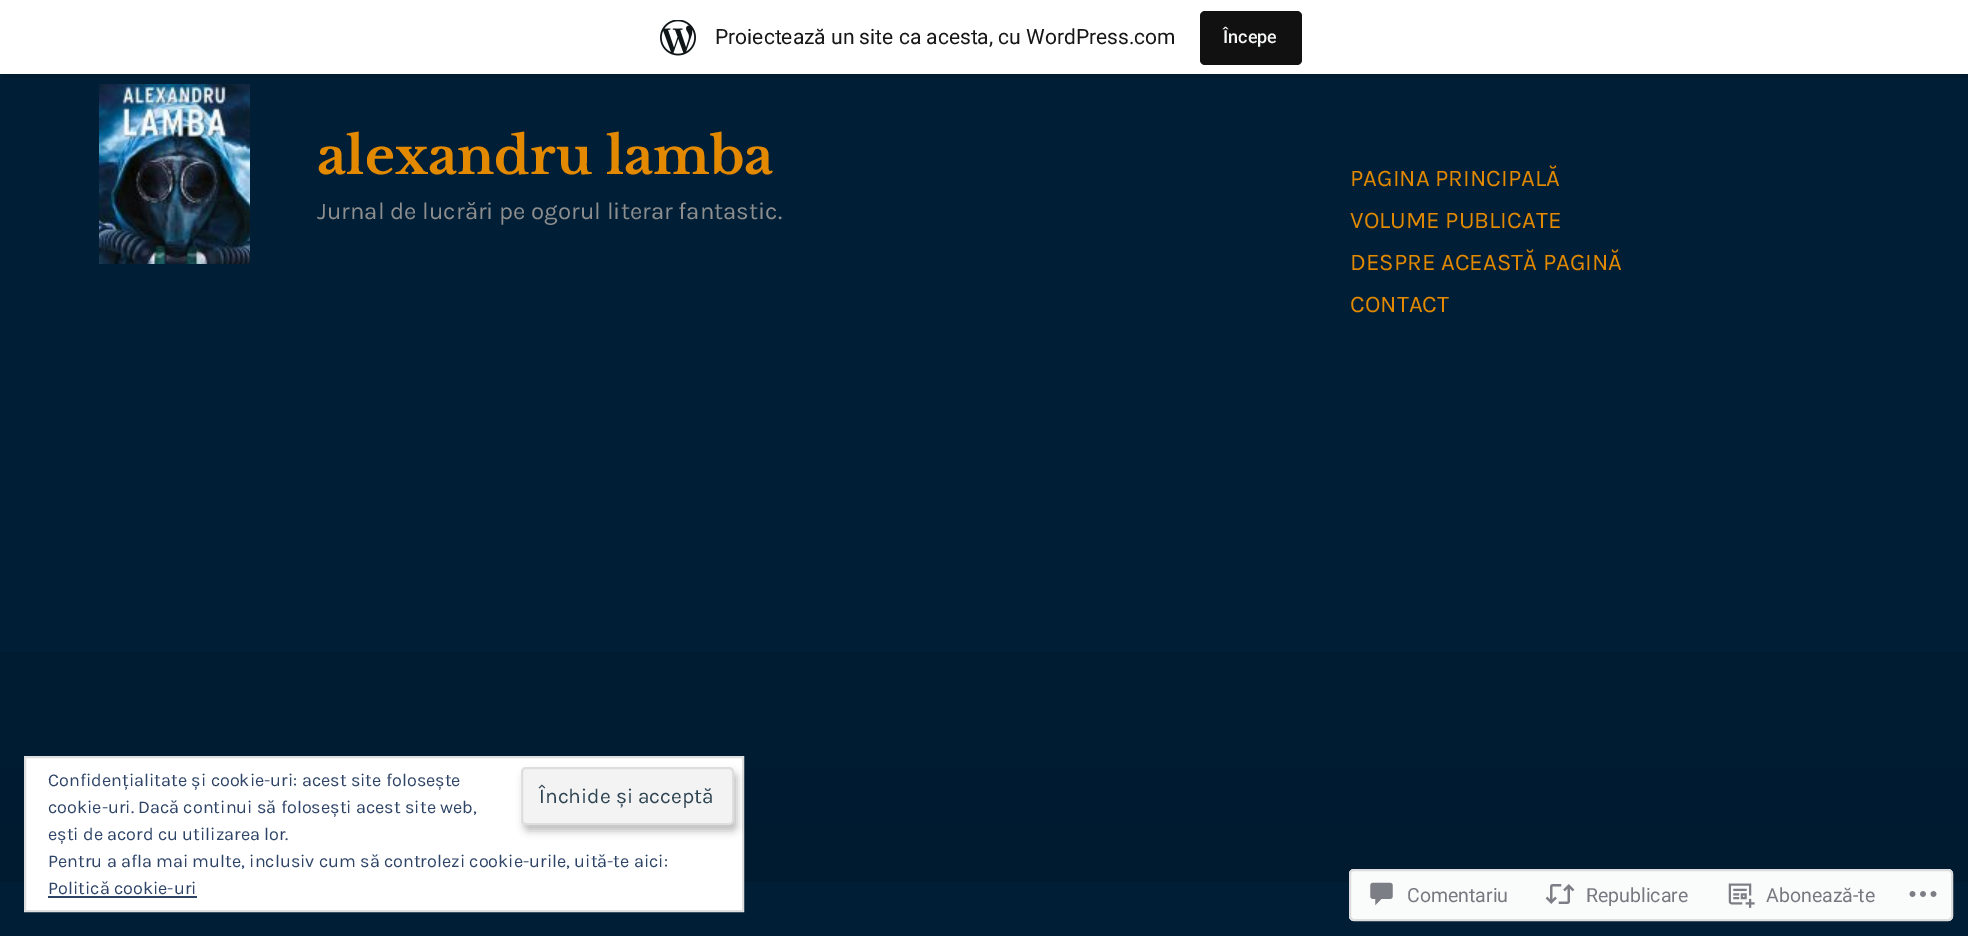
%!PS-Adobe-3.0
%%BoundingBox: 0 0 1968 936
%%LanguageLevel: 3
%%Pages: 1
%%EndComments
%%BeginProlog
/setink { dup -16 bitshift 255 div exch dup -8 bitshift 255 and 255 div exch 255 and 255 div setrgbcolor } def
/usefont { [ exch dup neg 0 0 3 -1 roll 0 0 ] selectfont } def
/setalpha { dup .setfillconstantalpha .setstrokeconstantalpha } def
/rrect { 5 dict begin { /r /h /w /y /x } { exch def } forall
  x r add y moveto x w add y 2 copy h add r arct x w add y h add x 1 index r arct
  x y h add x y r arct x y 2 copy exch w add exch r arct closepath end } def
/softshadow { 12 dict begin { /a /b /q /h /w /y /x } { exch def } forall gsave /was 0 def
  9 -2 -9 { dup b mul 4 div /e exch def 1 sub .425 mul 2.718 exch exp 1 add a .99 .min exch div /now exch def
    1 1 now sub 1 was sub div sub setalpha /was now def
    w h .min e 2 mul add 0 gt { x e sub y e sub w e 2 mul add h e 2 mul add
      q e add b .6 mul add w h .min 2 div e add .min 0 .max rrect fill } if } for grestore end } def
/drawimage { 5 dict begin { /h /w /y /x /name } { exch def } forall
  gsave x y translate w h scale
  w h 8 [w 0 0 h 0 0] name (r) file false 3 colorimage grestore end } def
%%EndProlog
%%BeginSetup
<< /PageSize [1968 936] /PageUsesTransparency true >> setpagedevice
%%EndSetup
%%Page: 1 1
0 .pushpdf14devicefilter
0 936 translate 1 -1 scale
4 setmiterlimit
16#001F36 setink
0 0 1968 936 rectfill
16#001C31 setink
2 74 moveto 2 78 lineto 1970 78 lineto 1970 5 lineto 1968 5 lineto 1968 74 lineto closepath fill
16#FFFFFF setink
0 0 1968 74 rectfill
(img1.raw) 660 20 36 36 drawimage
/Roboto-Regular 21 usefont
16#171717 setink
715 44 moveto (Proiectează un site ca acesta, cu WordPress.com) show
16#111111 setink
1200 11 102 54 5 rrect fill
/Roboto-Medium 18 usefont
16#F6F7F7 setink
1223 43 moveto (Începe) show
(img2.raw) 99 84 151 180 drawimage
/LibreBaskerville-Bold 51.25 usefont
16#E38900 setink
317 174 moveto (alexandru lamba) show
/Karla-Regular 24 usefont
16#8E8E8E setink
317 219 moveto (Jurnal de lucrări pe ogorul literar fantastic.) show
16#E38900 setink
[
    [(PAGINA PRINCIPALĂ) 1350 186]
    [(VOLUME PUBLICATE) 1350 228]
    [(DESPRE ACEASTĂ PAGINĂ) 1350 270]
    [(CONTACT) 1350 312]
] { aload pop moveto show } forall
gsave 0 652 moveto 1968 652 lineto 1968 882 lineto 0 882 lineto closepath clip newpath
<< /ShadingType 2 /ColorSpace /DeviceRGB /Coords [984 421 984 882] /Extend [true true] /Function << /FunctionType 2 /Domain [0 1] /C0 [0 0.122 0.216] /C1 [0 0.106 0.188] /N 1 >> >> shfill grestore
16#FFFFFF setink
25 757 moveto 743 757 lineto 743 911 lineto 25 911 lineto closepath gsave fill grestore
16#DEDEDE setink
2 setlinewidth
stroke
/Karla-Regular 18 usefont
16#2E4467 setink
48 786 moveto (Confidențialitate și cookie-uri: acest site folosește) show
48 813 moveto (cookie-uri. Dacă continui să folosești acest site web,) show
16#000000 setink
524 773 213 58 5 4 0.25 softshadow
16#F3F3F3 setink
522 768 211 56 4 rrect gsave fill grestore
16#DEDEDE setink
stroke
/Karla-Regular 21 usefont
16#2E4453 setink
539 803 moveto (Închide și acceptă) show
/Karla-Regular 18 usefont
16#2E4467 setink
[
    [(ești de acord cu utilizarea lor.) 48 840]
    [(Pentru a afla mai multe, inclusiv cum să controlezi cookie-urile, uită-te aici:) 48 867]
    [(Politică cookie-uri) 48 894]
] { aload pop moveto show } forall
48 896 149 2 rectfill
0.98 setalpha
16#FFFFFF setink
1349 869 604 52 5 rrect fill
16#DCDCDE setink
1350 870 602 50 4 rrect stroke
1 setalpha
(img3.raw) 1370 882 23 24 drawimage
/Roboto-Regular 19.5 usefont
16#767A80 setink
1407 902 moveto (Comentariu) show
(img4.raw) 1545 884 30 20 drawimage
1586 902 moveto (Republicare) show
(img5.raw) 1728 883 27 25 drawimage
1766 902 moveto (Abonează-te) show
(img6.raw) 1909 891 28 6 drawimage
.poppdf14devicefilter showpage
%%EOF
